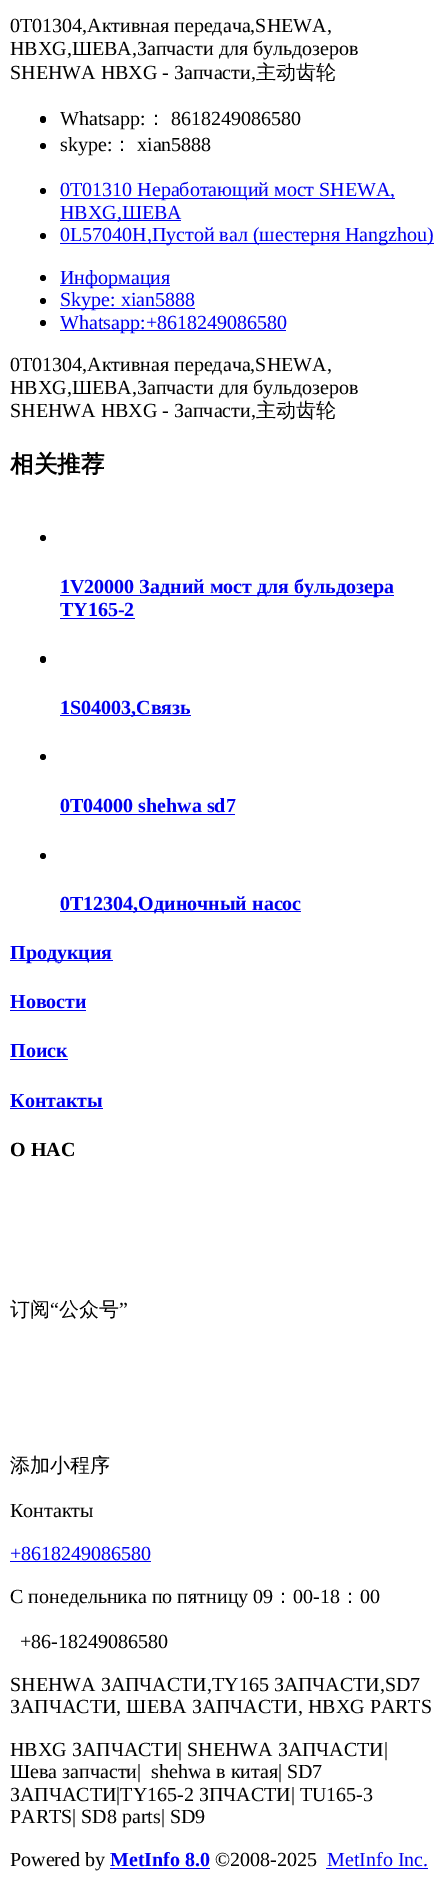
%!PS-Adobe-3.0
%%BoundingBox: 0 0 445 1879
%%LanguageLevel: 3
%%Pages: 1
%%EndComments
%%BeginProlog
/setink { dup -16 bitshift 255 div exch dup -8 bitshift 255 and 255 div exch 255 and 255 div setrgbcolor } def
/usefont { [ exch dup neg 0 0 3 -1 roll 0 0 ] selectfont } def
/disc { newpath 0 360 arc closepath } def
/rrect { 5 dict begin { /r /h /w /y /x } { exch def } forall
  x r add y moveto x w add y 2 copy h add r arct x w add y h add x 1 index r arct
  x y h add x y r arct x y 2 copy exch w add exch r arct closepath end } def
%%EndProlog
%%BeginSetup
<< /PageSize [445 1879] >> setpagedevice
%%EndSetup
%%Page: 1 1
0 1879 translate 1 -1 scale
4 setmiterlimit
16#FFFFFF setink
0 0 445 1879 rectfill
/LiberationSerif-Regular 20 usefont
16#000000 setink
[
    [(0T01304,Активная передача,SHEWA,) 10 32]
    [(HBXG,ШЕВА,Запчасти для бульдозеров) 10 55]
    [(SHEHWA HBXG - Запчасти,) 10 79]
] { aload pop moveto show } forall
/WenQuanYiZenHei-Medium 20 usefont
256 79 moveto (主动齿轮) show
40 116 6 7 3 rrect fill
/LiberationSerif-Regular 20 usefont
60 125 moveto (Whatsapp:) show
/WenQuanYiZenHei-Medium 20 usefont
146 125 moveto (：) show
/LiberationSerif-Regular 20 usefont
171 125 moveto (8618249086580) show
43 146 3 disc fill
60 151 moveto (skype:) show
/WenQuanYiZenHei-Medium 20 usefont
112 151 moveto (：) show
/LiberationSerif-Regular 20 usefont
137 151 moveto (xian5888) show
43 191 3 disc fill
16#0000EE setink
60 198 335 1 rectfill
60 196 moveto (0T01310 Неработающий мост SHEWA,) show
60 220 121 1 rectfill
60 219 moveto (HBXG,ШЕВА) show
16#000000 setink
43 236 3 disc fill
16#0000EE setink
60 243 374 1 rectfill
60 241 moveto (0L57040H,Пустой вал \(шестерня Hangzhou\)) show
16#000000 setink
43 278 3 disc fill
16#0000EE setink
60 285 110 1 rectfill
60 284 moveto (Информация) show
16#000000 setink
43 301 3 disc fill
16#0000EE setink
60 308 135 1 rectfill
60 306 moveto (Skype: xian5888) show
16#000000 setink
43 323 3 disc fill
16#0000EE setink
60 330 226 1 rectfill
60 329 moveto (Whatsapp:+8618249086580) show
16#000000 setink
[
    [(0T01304,Активная передача,SHEWA,) 10 371]
    [(HBXG,ШЕВА,Запчасти для бульдозеров) 10 394]
    [(SHEHWA HBXG - Запчасти,) 10 417]
] { aload pop moveto show } forall
/WenQuanYiZenHei-Medium 20 usefont
256 417 moveto (主动齿轮) show
/WenQuanYiZenHei-Bold 23.5 usefont
10 472 moveto (相关推荐) show
43 538 3 disc fill
16#0000EE setink
60 595 334 1 rectfill
/LiberationSerif-Bold 20 usefont
60 593 moveto (1V20000 Задний мост для бульдозера) show
60 616 moveto (TY165-2) show
60 618 75 1 rectfill
16#000000 setink
40 656 6 7 3 rrect fill
16#0000EE setink
60 715 131 1 rectfill
60 714 moveto (1S04003,Связь) show
16#000000 setink
43 757 3 disc fill
16#0000EE setink
60 812 moveto (0Т04000 shehwa sd7) show
60 814 175 1 rectfill
16#000000 setink
43 856 3 disc fill
16#0000EE setink
60 911 241 1 rectfill
60 910 moveto (0T12304,Одиночный насос) show
10 960 103 1 rectfill
10 959 moveto (Продукция) show
10 1008 moveto (Новости) show
10 1010 76 1 rectfill
10 1057 moveto (Поиск) show
10 1059 58 1 rectfill
10 1107 moveto (Контакты) show
10 1108 93 1 rectfill
16#000000 setink
10 1156 moveto (О НАС) show
/WenQuanYiZenHei-Medium 20 usefont
10 1316 moveto (订阅) show
/LiberationSerif-Regular 20 usefont
50 1316 moveto (“) show
/WenQuanYiZenHei-Medium 20 usefont
59 1316 moveto (公众号) show
/LiberationSerif-Regular 20 usefont
119 1316 moveto (”) show
/WenQuanYiZenHei-Medium 20 usefont
10 1472 moveto (添加小程序) show
/LiberationSerif-Regular 20 usefont
10 1517 moveto (Контакты) show
16#0000EE setink
10 1560 moveto (+8618249086580) show
10 1561 141 1 rectfill
16#000000 setink
10 1603 moveto (С понедельника по пятницу 09) show
/WenQuanYiZenHei-Medium 20 usefont
273 1603 moveto (：) show
/LiberationSerif-Regular 20 usefont
293 1603 moveto (00-18) show
/WenQuanYiZenHei-Medium 20 usefont
340 1603 moveto (：) show
/LiberationSerif-Regular 20 usefont
[
    [(00) 360 1603]
    [(+86-18249086580) 20 1648]
    [(SHEHWA ЗАПЧАСТИ,TY165 ЗАПЧАСТИ,SD7) 10 1691]
    [(ЗАПЧАСТИ, ШЕВА ЗАПЧАСТИ, HBXG PARTS) 10 1713]
    [(HBXG ЗАПЧАСТИ| SHEHWA ЗАПЧАСТИ|) 10 1756]
    [(Шева запчасти|  shehwa в китая| SD7) 10 1778]
    [(ЗАПЧАСТИ|TY165-2 ЗПЧАСТИ| TU165-3) 10 1801]
    [(PARTS| SD8 parts| SD9) 10 1823]
    [(Powered by) 10 1866]
] { aload pop moveto show } forall
/LiberationSerif-Bold 20 usefont
16#0000EE setink
110 1866 moveto (MetInfo 8.0) show
110 1868 100 1 rectfill
/LiberationSerif-Regular 20 usefont
16#000000 setink
215 1866 moveto (©2008-2025) show
16#0000EE setink
327 1866 moveto (MetInfo Inc.) show
326 1868 102 1 rectfill
showpage
%%EOF
